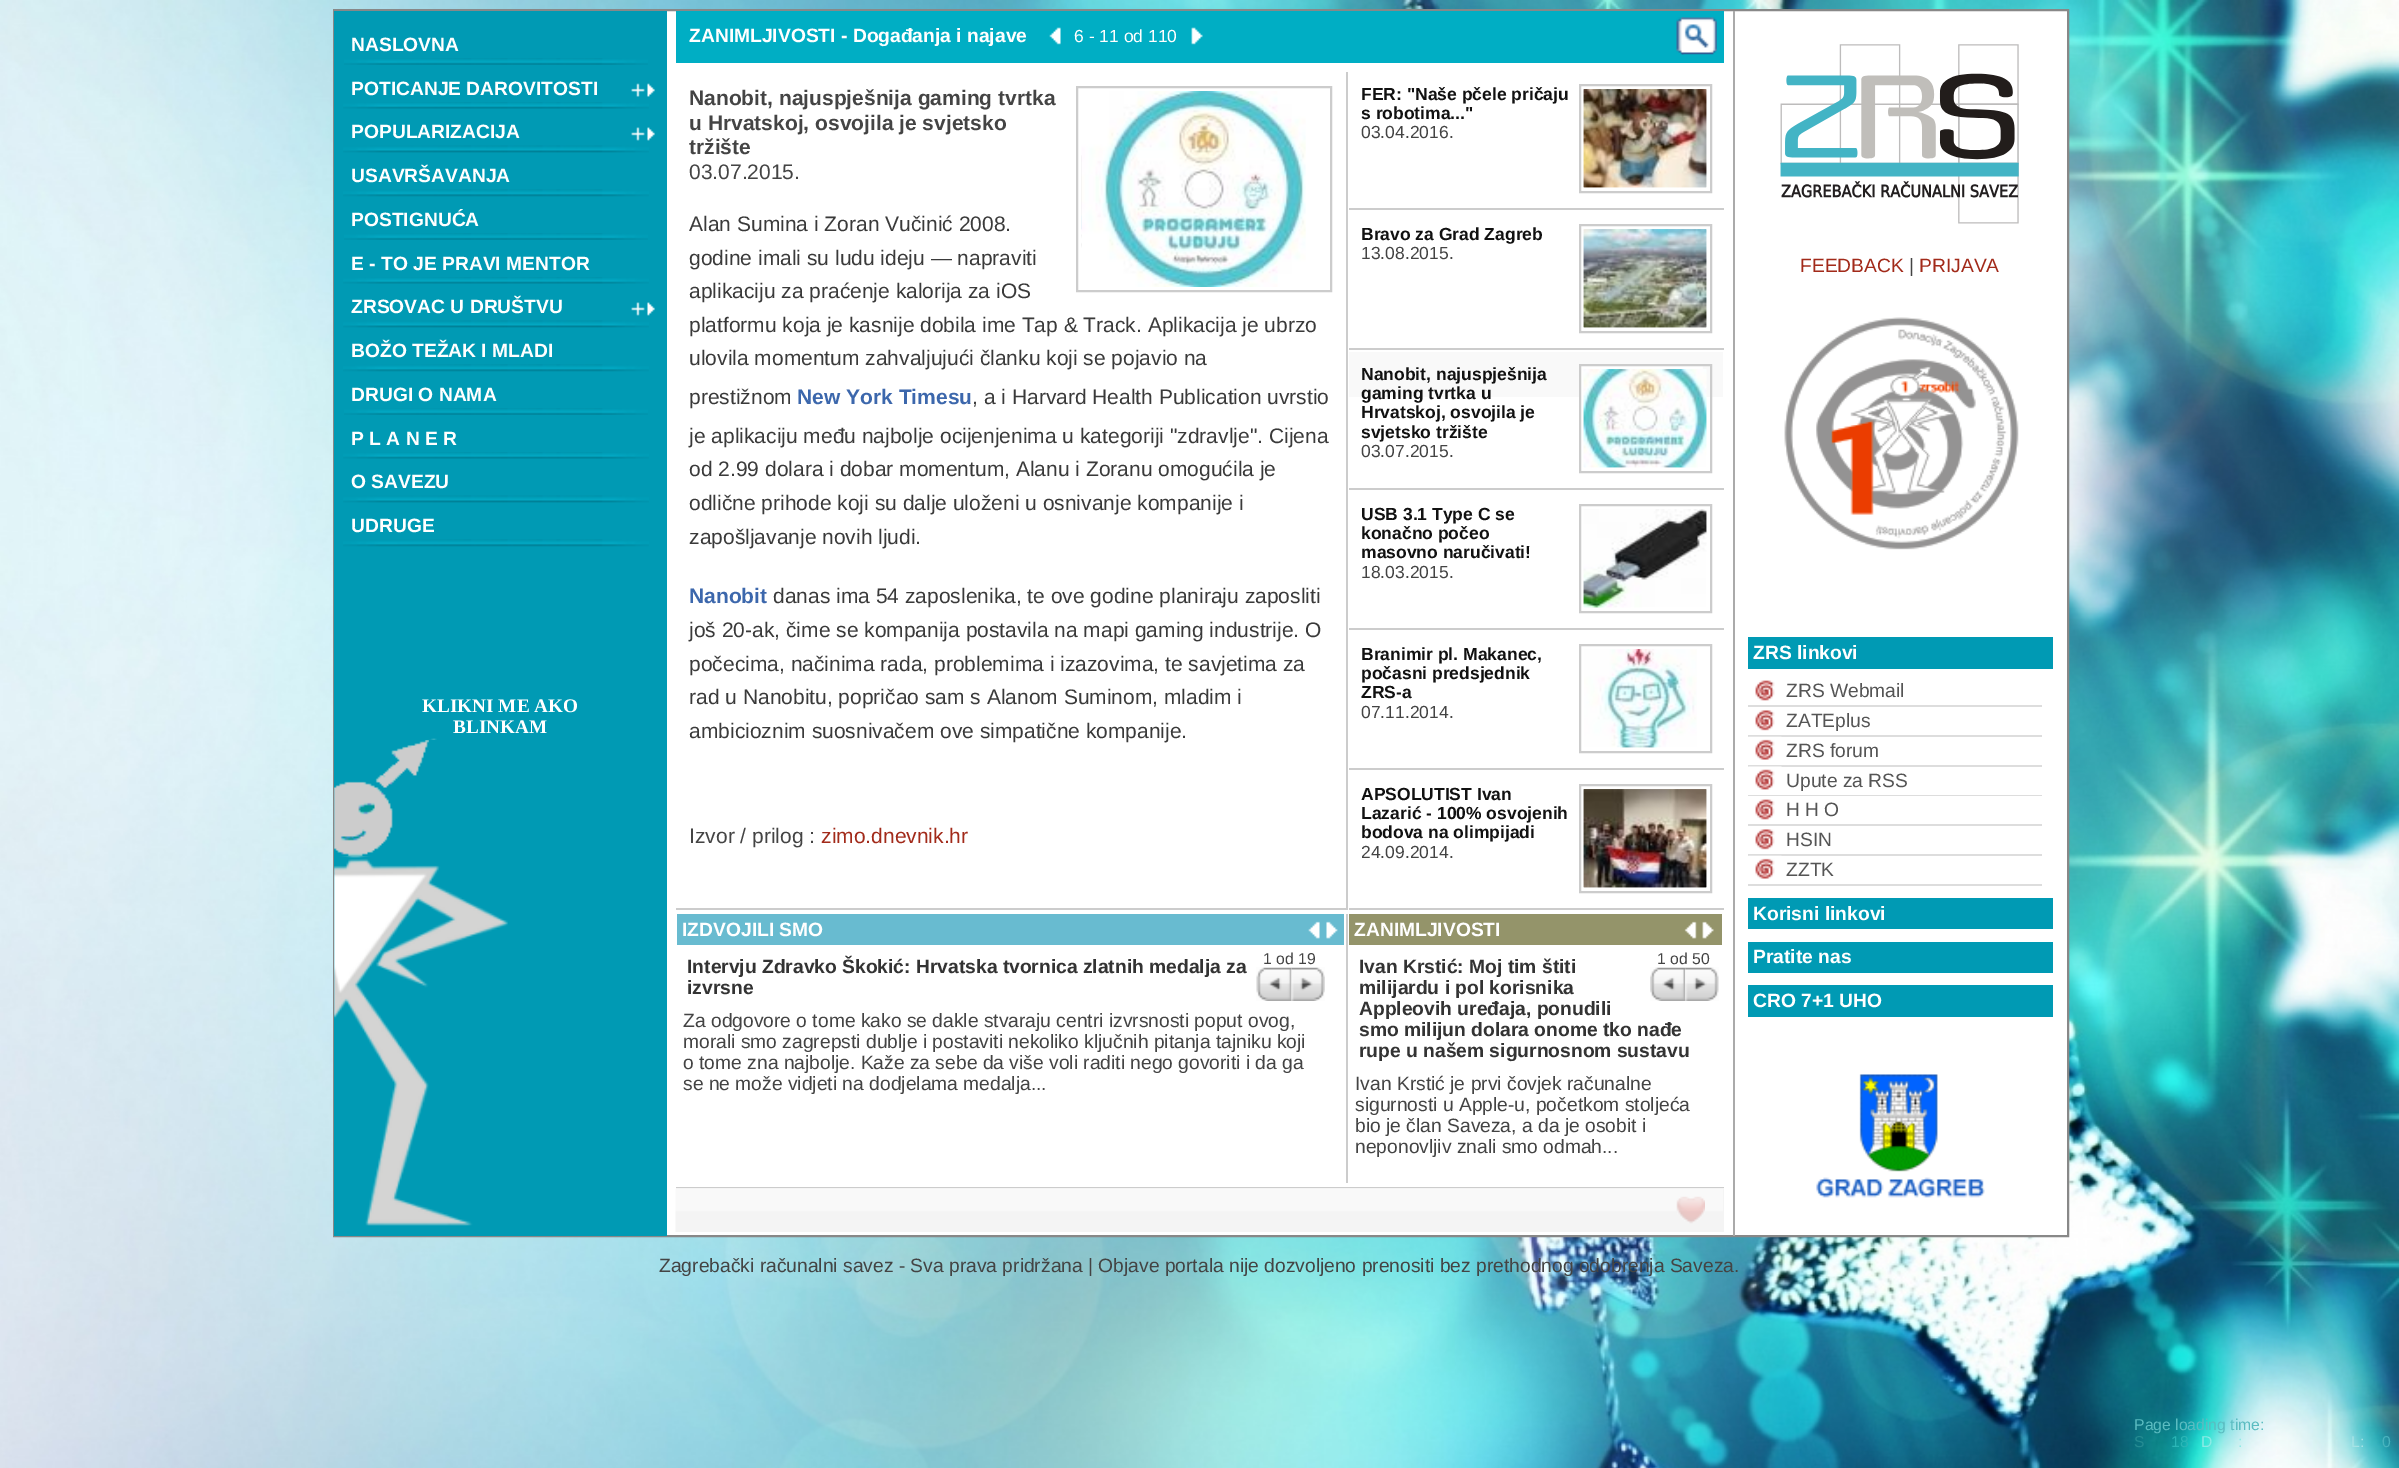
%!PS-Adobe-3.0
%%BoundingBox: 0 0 2399 1468
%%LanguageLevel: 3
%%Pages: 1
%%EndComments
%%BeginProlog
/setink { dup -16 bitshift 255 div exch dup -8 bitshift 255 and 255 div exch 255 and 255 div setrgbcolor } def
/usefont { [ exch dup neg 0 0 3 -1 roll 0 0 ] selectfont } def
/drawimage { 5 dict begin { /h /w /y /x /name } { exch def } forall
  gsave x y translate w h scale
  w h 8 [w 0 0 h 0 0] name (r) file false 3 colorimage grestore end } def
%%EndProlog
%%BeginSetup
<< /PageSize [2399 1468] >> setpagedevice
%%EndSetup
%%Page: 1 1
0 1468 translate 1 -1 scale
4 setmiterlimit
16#FFFFFF setink
0 0 2399 1468 rectfill
(img1.raw) 0 0 2399 1468 drawimage
667 11 1400 1224 rectfill
16#888888 setink
2 setlinewidth
334 10 1734 1226 rectstroke
16#009AB4 setink
334 11 333 1225 rectfill
(img2.raw) 334 738 174 488 drawimage
(img3.raw) 344 58 304 7 drawimage
/LiberationSans-Bold 19.25 usefont
16#FFFFFF setink
351 51 moveto (NASLOVNA) show
(img4.raw) 343 102 306 7 drawimage
351 95 moveto (POTICANJE DAROVITOSTI) show
(img5.raw) 631 83 24 14 drawimage
(img6.raw) 343 145 306 8 drawimage
351 138 moveto (POPULARIZACIJA) show
(img7.raw) 631 127 24 14 drawimage
(img8.raw) 343 189 306 8 drawimage
351 182 moveto (USAVRŠAVANJA) show
(img3.raw) 344 233 304 7 drawimage
351 226 moveto (POSTIGNUĆA) show
(img4.raw) 343 277 306 7 drawimage
351 270 moveto (E - TO JE PRAVI MENTOR) show
(img6.raw) 343 320 306 8 drawimage
351 313 moveto (ZRSOVAC U DRUŠTVU) show
(img7.raw) 631 302 24 14 drawimage
(img8.raw) 343 364 306 8 drawimage
351 357 moveto (BOŽO TEŽAK I MLADI) show
(img3.raw) 344 408 304 7 drawimage
351 401 moveto (DRUGI O NAMA) show
(img4.raw) 343 452 306 7 drawimage
351 445 moveto (P L A N E R) show
(img6.raw) 343 495 306 8 drawimage
351 488 moveto (O SAVEZU) show
(img8.raw) 343 539 306 8 drawimage
351 532 moveto (UDRUGE) show
16#009AB4 setink
334 740 103 116 rectfill
(img9.raw) 334 740 95 116 drawimage
/LiberationSerif-Bold 19.25 usefont
16#FFFFFF setink
422 712 moveto (KLIKNI ME AKO) show
453 733 moveto (BLINKAM) show
16#AAAAAA setink
1733 11 2 1225 rectfill
16#00AEC4 setink
676 11 1048 52 rectfill
/LiberationSans-Bold 19.25 usefont
16#FFFFFF setink
689 42 moveto (ZANIMLJIVOSTI - Događanja i najave) show
(img10.raw) 1049 27 12 18 drawimage
/LiberationSans-Regular 17.5 usefont
1074 42 moveto (6 - 11 od 110) show
(img11.raw) 1191 27 12 18 drawimage
(img12.raw) 1676 17 8 38 drawimage
(img13.raw) 1681 17 36 38 drawimage
16#CCCCCC setink
1346 72 2 838 rectfill
676 908 672 2 rectfill
/LiberationSans-Bold 21 usefont
16#444444 setink
[
    [(Nanobit, najuspješnija gaming tvrtka) 689 105]
    [(u Hrvatskoj, osvojila je svjetsko) 689 130]
    [(tržište) 689 154]
] { aload pop moveto show } forall
(img14.raw) 1081 91 225 196 drawimage
16#CCCCCC setink
1077 87 254 204 rectstroke
(img15.raw) 1081 156 1 91 drawimage
/LiberationSans-Regular 21 usefont
16#444444 setink
689 179 moveto (03.07.2015.) show
16#3A3A3A setink
[
    [(Alan Sumina i Zoran Vučinić 2008.) 689 231]
    [(godine imali su ludu ideju — napraviti) 689 265]
    [(aplikaciju za praćenje kalorija za iOS) 689 298]
    [(platformu koja je kasnije dobila ime Tap & Track. Aplikacija je ubrzo) 689 332]
    [(ulovila momentum zahvaljujući članku koji se pojavio na) 689 365]
    [(prestižnom) 689 404]
] { aload pop moveto show } forall
/LiberationSans-Bold 21 usefont
16#3C67AC setink
797 404 moveto (New York Timesu) show
/LiberationSans-Regular 21 usefont
16#3A3A3A setink
[
    [(, a i Harvard Health Publication uvrstio) 972 404]
    [(je aplikaciju među najbolje ocijenjenima u kategoriji "zdravlje". Cijena) 689 443]
    [(od 2.99 dolara i dobar momentum, Alanu i Zoranu omogućila je) 689 476]
    [(odlične prihode koji su dalje uloženi u osnivanje kompanije i) 689 510]
    [(zapošljavanje novih ljudi.) 689 544]
] { aload pop moveto show } forall
/LiberationSans-Bold 21 usefont
16#3C67AC setink
689 603 moveto (Nanobit) show
/LiberationSans-Regular 21 usefont
16#3A3A3A setink
[
    [(danas ima 54 zaposlenika, te ove godine planiraju zaposliti) 773 603]
    [(još 20-ak, čime se kompanija postavila na mapi gaming industrije. O) 689 637]
    [(počecima, načinima rada, problemima i izazovima, te savjetima za) 689 671]
    [(rad u Nanobitu, popričao sam s Alanom Suminom, mladim i) 689 704]
    [(ambicioznim suosnivačem ove simpatične kompanije.) 689 738]
] { aload pop moveto show } forall
16#444444 setink
689 843 moveto (Izvor / prilog :) show
16#A22A1A setink
821 843 moveto (zimo.dnevnik.hr) show
16#CCCCCC setink
1349 208 375 2 rectfill
/LiberationSans-Bold 17.5 usefont
16#111111 setink
1361 100 moveto (FER: "Naše pčele pričaju) show
1361 119 moveto (s robotima...") show
(img16.raw) 1583 89 124 99 drawimage
16#CCCCCC setink
1580 85 131 107 rectstroke
(img17.raw) 1583 89 124 99 drawimage
/LiberationSans-Regular 17.5 usefont
16#444444 setink
1361 138 moveto (03.04.2016.) show
16#CCCCCC setink
1349 348 375 2 rectfill
/LiberationSans-Bold 17.5 usefont
16#111111 setink
1361 240 moveto (Bravo za Grad Zagreb) show
(img18.raw) 1583 229 124 99 drawimage
16#CCCCCC setink
1580 225 131 107 rectstroke
(img19.raw) 1583 229 124 99 drawimage
/LiberationSans-Regular 17.5 usefont
16#444444 setink
1361 259 moveto (13.08.2015.) show
16#F9F9F9 setink
1349 352 374 45 rectfill
16#CCCCCC setink
1349 488 375 2 rectfill
/LiberationSans-Bold 17.5 usefont
16#111111 setink
[
    [(Nanobit, najuspješnija) 1361 380]
    [(gaming tvrtka u) 1361 399]
    [(Hrvatskoj, osvojila je) 1361 418]
    [(svjetsko tržište) 1361 438]
] { aload pop moveto show } forall
(img20.raw) 1581 366 126 102 drawimage
16#CCCCCC setink
1580 365 131 107 rectstroke
(img21.raw) 1583 369 124 99 drawimage
/LiberationSans-Regular 17.5 usefont
16#444444 setink
1361 457 moveto (03.07.2015.) show
16#CCCCCC setink
1349 628 375 2 rectfill
/LiberationSans-Bold 17.5 usefont
16#111111 setink
[
    [(USB 3.1 Type C se) 1361 520]
    [(konačno počeo) 1361 539]
    [(masovno naručivati!) 1361 558]
] { aload pop moveto show } forall
(img22.raw) 1583 509 124 99 drawimage
16#CCCCCC setink
1580 505 131 107 rectstroke
(img23.raw) 1583 509 124 99 drawimage
/LiberationSans-Regular 17.5 usefont
16#444444 setink
1361 578 moveto (18.03.2015.) show
16#CCCCCC setink
1349 768 375 2 rectfill
/LiberationSans-Bold 17.5 usefont
16#111111 setink
[
    [(Branimir pl. Makanec,) 1361 660]
    [(počasni predsjednik) 1361 679]
    [(ZRS-a) 1361 698]
] { aload pop moveto show } forall
(img24.raw) 1584 649 113 99 drawimage
16#CCCCCC setink
1580 645 131 107 rectstroke
(img25.raw) 1620 649 37 99 drawimage
/LiberationSans-Regular 17.5 usefont
16#444444 setink
1361 718 moveto (07.11.2014.) show
16#CCCCCC setink
1349 908 375 2 rectfill
/LiberationSans-Bold 17.5 usefont
16#111111 setink
[
    [(APSOLUTIST Ivan) 1361 800]
    [(Lazarić - 100% osvojenih) 1361 819]
    [(bodova na olimpijadi) 1361 838]
] { aload pop moveto show } forall
(img26.raw) 1583 789 124 99 drawimage
16#CCCCCC setink
1580 785 131 107 rectstroke
(img27.raw) 1583 789 124 99 drawimage
/LiberationSans-Regular 17.5 usefont
16#444444 setink
1361 858 moveto (24.09.2014.) show
[
    [676 1187 1048 1 16#CCCCCC]
    [1346 914 2 269 16#CCCCCC]
    [677 914 667 31 16#68BBD0]
] { aload pop setink rectfill } forall
/LiberationSans-Bold 19.25 usefont
16#FFFFFF setink
682 936 moveto (IZDVOJILI SMO) show
16#333333 setink
687 973 moveto (Intervju Zdravko Škokić: Hrvatska tvornica zlatnih medalja za) show
687 994 moveto (izvrsne) show
/LiberationSans-Regular 15.75 usefont
16#444444 setink
1263 964 moveto (1 od 19) show
(img28.raw) 1256 967 36 34 drawimage
(img29.raw) 1291 967 34 34 drawimage
/LiberationSans-Regular 19.25 usefont
[
    [(Za odgovore o tome kako se dakle stvaraju centri izvrsnosti poput ovog,) 683 1027]
    [(morali smo zagrepsti dublje i postaviti nekoliko ključnih pitanja tajniku koji) 683 1048]
    [(o tome zna najbolje. Kaže za sebe da više voli raditi nego govoriti i da ga) 683 1069]
    [(se ne može vidjeti na dodjelama medalja...) 683 1090]
] { aload pop moveto show } forall
(img30.raw) 1308 921 12 18 drawimage
(img31.raw) 1326 921 12 18 drawimage
16#94946A setink
1349 914 373 31 rectfill
(img32.raw) 1684 921 13 18 drawimage
(img33.raw) 1702 921 12 18 drawimage
/LiberationSans-Bold 19.25 usefont
16#FFFFFF setink
1354 936 moveto (ZANIMLJIVOSTI) show
/LiberationSans-Regular 15.75 usefont
16#444444 setink
1657 964 moveto (1 od 50) show
(img34.raw) 1650 967 36 34 drawimage
(img35.raw) 1685 967 34 34 drawimage
/LiberationSans-Bold 19.25 usefont
16#333333 setink
[
    [(Ivan Krstić: Moj tim štiti) 1359 973]
    [(milijardu i pol korisnika) 1359 994]
    [(Appleovih uređaja, ponudili) 1359 1015]
    [(smo milijun dolara onome tko nađe) 1359 1036]
    [(rupe u našem sigurnosnom sustavu) 1359 1057]
] { aload pop moveto show } forall
/LiberationSans-Regular 19.25 usefont
16#444444 setink
[
    [(Ivan Krstić je prvi čovjek računalne) 1355 1090]
    [(sigurnosti u Apple-u, početkom stoljeća) 1355 1111]
    [(bio je član Saveza, a da je osobit i) 1355 1132]
    [(neponovljiv znali smo odmah...) 1355 1153]
] { aload pop moveto show } forall
16#F4F4F4 setink
676 1188 1048 44 rectfill
(img36.raw) 675 1189 1048 43 drawimage
(img37.raw) 1676 1196 29 28 drawimage
(img38.raw) 1780 44 239 180 drawimage
16#A22A1A setink
1800 272 moveto (FEEDBACK) show
16#444444 setink
1909 272 moveto (|) show
16#A22A1A setink
1919 272 moveto (PRIJAVA) show
(img39.raw) 1784 317 235 233 drawimage
16#009AB4 setink
1748 637 305 32 rectfill
/LiberationSans-Bold 19.25 usefont
16#FFFFFF setink
1753 659 moveto (ZRS linkovi) show
(img40.raw) 1755 680 20 21 drawimage
16#DDDDDD setink
1748 705 294 2 rectfill
/LiberationSans-Regular 19.25 usefont
16#555555 setink
1786 697 moveto (ZRS Webmail) show
(img41.raw) 1755 710 20 21 drawimage
16#DDDDDD setink
1748 735 294 2 rectfill
16#555555 setink
1786 727 moveto (ZATEplus) show
(img42.raw) 1748 736 34 24 drawimage
16#DDDDDD setink
1748 765 294 2 rectfill
16#555555 setink
1786 757 moveto (ZRS forum) show
(img43.raw) 1748 766 34 24 drawimage
16#DDDDDD setink
1748 795 294 1 rectfill
16#555555 setink
1786 787 moveto (Upute za RSS) show
(img40.raw) 1755 799 20 21 drawimage
16#DDDDDD setink
1748 824 294 2 rectfill
16#555555 setink
1786 816 moveto (H H O) show
(img41.raw) 1755 829 20 21 drawimage
16#DDDDDD setink
1748 854 294 2 rectfill
16#555555 setink
1786 846 moveto (HSIN) show
(img42.raw) 1748 855 34 24 drawimage
16#DDDDDD setink
1748 884 294 2 rectfill
16#555555 setink
1786 876 moveto (ZZTK) show
16#009AB4 setink
1748 898 305 31 rectfill
/LiberationSans-Bold 19.25 usefont
16#FFFFFF setink
1753 920 moveto (Korisni linkovi) show
16#009AB4 setink
1748 942 305 31 rectfill
16#FFFFFF setink
1753 963 moveto (Pratite nas) show
16#009AB4 setink
1748 985 305 32 rectfill
16#FFFFFF setink
1753 1007 moveto (CRO 7+1 UHO) show
(img44.raw) 1816 1074 169 124 drawimage
/LiberationSans-Regular 15.75 usefont
16#5BBCC1 setink
2134 1430 moveto (Page loading time:) show
16#248B92 setink
2134 1447 moveto (S) show
16#2BB6B7 setink
2171 1447 moveto (18) show
16#8DEBE6 setink
2201 1447 moveto (D) show
2238 1447 moveto (:) show
16#A7E3E6 setink
2351 1447 moveto (L:) show
16#48B3BE setink
2382 1447 moveto (0) show
/LiberationSans-Regular 19.25 usefont
16#444444 setink
659 1272 moveto (Zagrebački računalni savez - Sva prava pridržana | Objave portala nije dozvoljeno prenositi bez prethodnog odobrenja Saveza.) show
showpage
%%EOF
